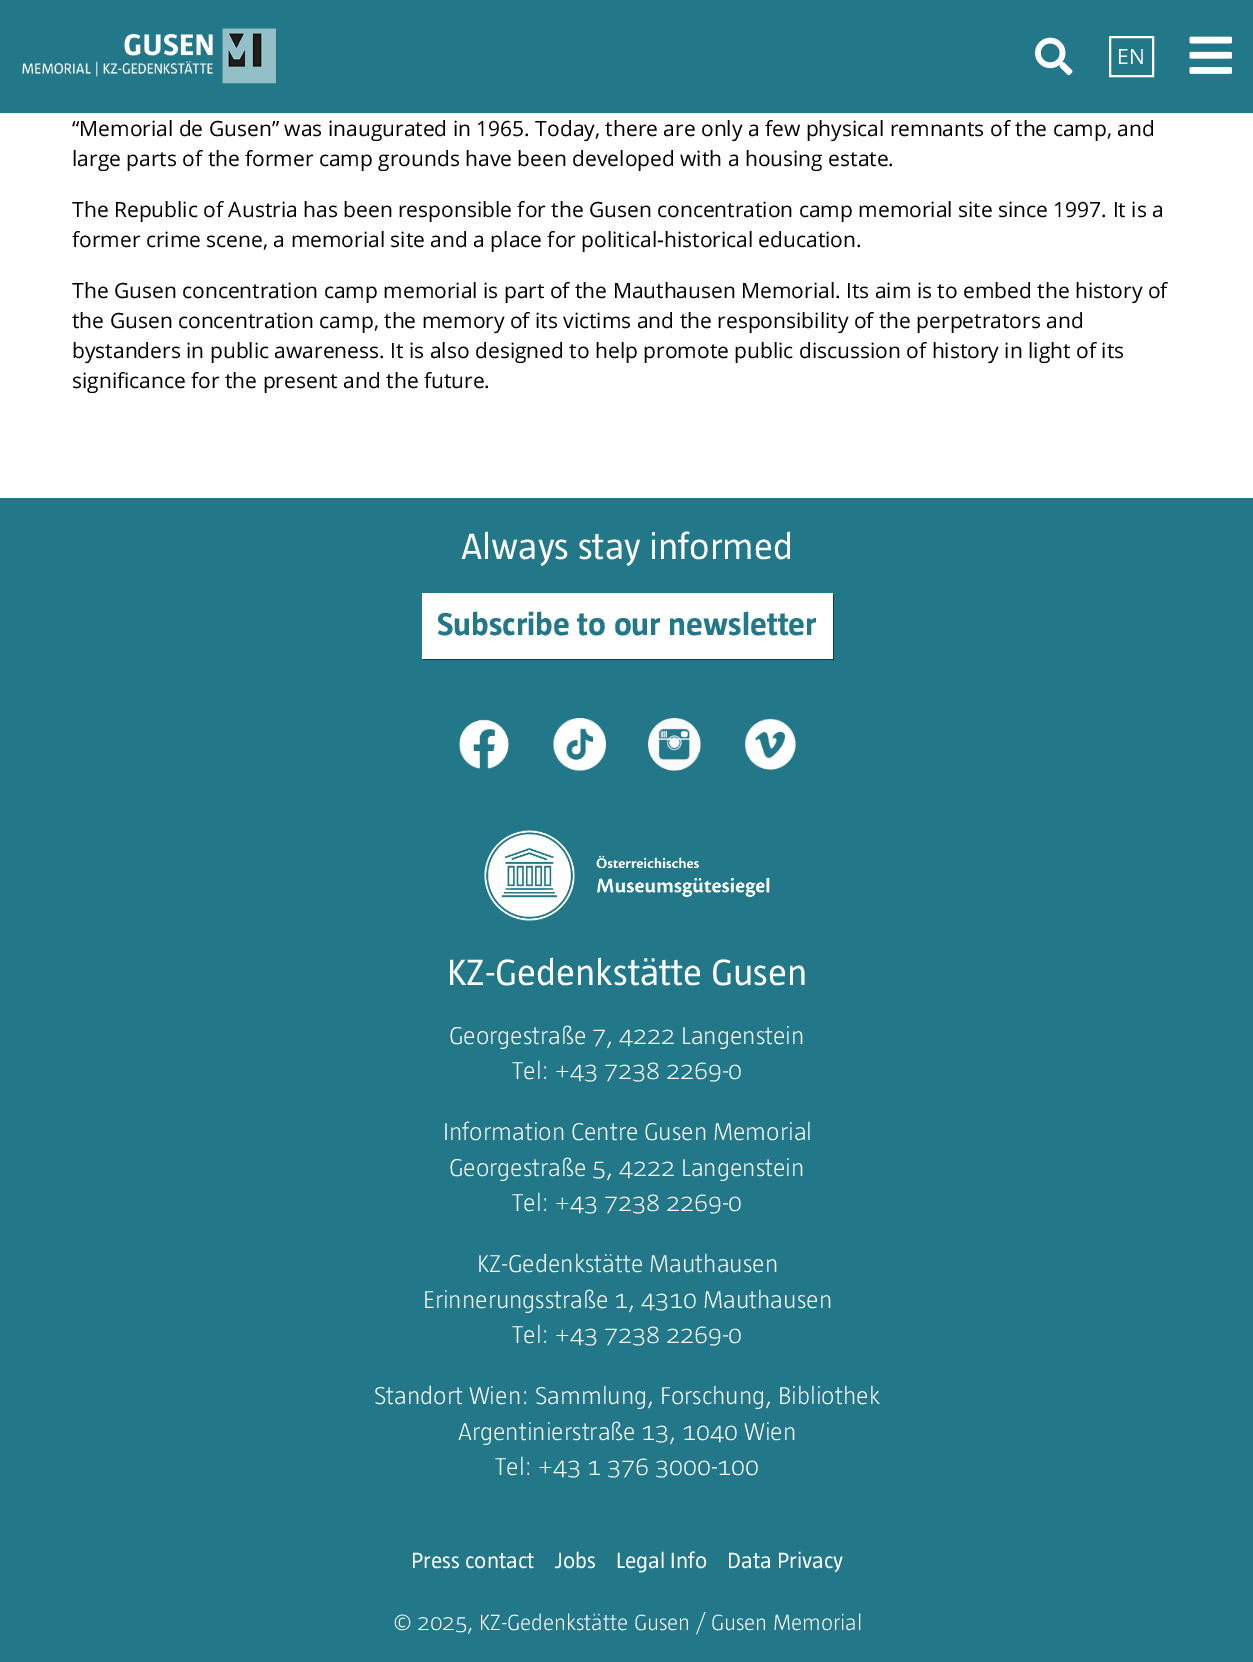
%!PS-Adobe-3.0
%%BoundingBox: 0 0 1253 1662
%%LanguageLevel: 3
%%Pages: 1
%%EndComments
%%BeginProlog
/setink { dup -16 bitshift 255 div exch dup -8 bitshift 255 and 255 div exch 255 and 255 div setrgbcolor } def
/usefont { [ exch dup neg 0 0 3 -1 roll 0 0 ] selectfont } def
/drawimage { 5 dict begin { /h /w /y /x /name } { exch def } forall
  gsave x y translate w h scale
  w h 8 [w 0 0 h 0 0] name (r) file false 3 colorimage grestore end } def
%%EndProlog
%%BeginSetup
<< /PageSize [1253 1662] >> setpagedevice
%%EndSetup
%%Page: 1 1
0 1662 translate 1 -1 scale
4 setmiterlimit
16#FFFFFF setink
0 0 1253 1662 rectfill
16#227788 setink
0 0 1253 113 rectfill
(img1.raw) 22 28 254 56 drawimage
(img2.raw) 1035 37 38 39 drawimage
16#FFFFFF setink
2 setlinewidth
1110 37 43 39 rectstroke
/OpenSans-Regular 21 usefont
1117 64 moveto (EN) show
(img3.raw) 1189 36 44 38 drawimage
16#000000 setink
[
    [(“Memorial de Gusen” was inaugurated in 1965. Today, there are only a few physical remnants of the camp, and) 72 136]
    [(large parts of the former camp grounds have been developed with a housing estate.) 72 166]
    [(The Republic of Austria has been responsible for the Gusen concentration camp memorial site since 1997. It is a) 72 217]
    [(former crime scene, a memorial site and a place for political-historical education.) 72 247]
    [(The Gusen concentration camp memorial is part of the Mauthausen Memorial. Its aim is to embed the history of) 72 298]
    [(the Gusen concentration camp, the memory of its victims and the responsibility of the perpetrators and) 72 328]
    [(bystanders in public awareness. It is also designed to help promote public discussion of history in light of its) 72 358]
    [(significance for the present and the future.) 72 388]
] { aload pop moveto show } forall
16#227788 setink
0 498 1253 1164 rectfill
/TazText-Regular 37.5 usefont
16#FFFFFF setink
461 559 moveto (Always stay informed) show
16#113C44 setink
423 658 moveto 423 660 lineto 834 660 lineto 834 594 lineto 832 594 lineto 832 658 lineto closepath fill
16#FFFFFF setink
422 593 411 66 rectfill
/TazText-Bold 32.25 usefont
16#227788 setink
437 635 moveto (Subscribe to our newsletter) show
(img4.raw) 459 719 50 50 drawimage
(img5.raw) 553 718 53 53 drawimage
(img6.raw) 648 718 53 53 drawimage
(img7.raw) 744 718 52 52 drawimage
(img8.raw) 484 830 286 91 drawimage
/TazText-Regular 37.5 usefont
16#FFFFFF setink
447 985 moveto (KZ-Gedenkstätte Gusen) show
/TazText-Light 25 usefont
[
    [(Georgestraße 7, 4222 Langenstein) 449 1044]
    [(Tel: +43 7238 2269-0) 512 1079]
    [(Information Centre Gusen Memorial) 443 1140]
    [(Georgestraße 5, 4222 Langenstein) 449 1176]
    [(Tel: +43 7238 2269-0) 512 1211]
    [(KZ-Gedenkstätte Mauthausen) 477 1272]
    [(Erinnerungsstraße 1, 4310 Mauthausen) 423 1308]
    [(Tel: +43 7238 2269-0) 512 1343]
    [(Standort Wien: Sammlung, Forschung, Bibliothek) 374 1404]
    [(Argentinierstraße 13, 1040 Wien) 458 1440]
    [(Tel: +43 1 376 3000-100) 495 1475]
] { aload pop moveto show } forall
/TazText-Regular 22.5 usefont
[
    [(Press contact) 411 1568]
    [(Jobs) 555 1568]
    [(Legal Info) 616 1568]
    [(Data Privacy) 727 1568]
] { aload pop moveto show } forall
/TazText-Light 22.5 usefont
393 1630 moveto (© 2025, KZ-Gedenkstätte Gusen / Gusen Memorial) show
showpage
%%EOF
